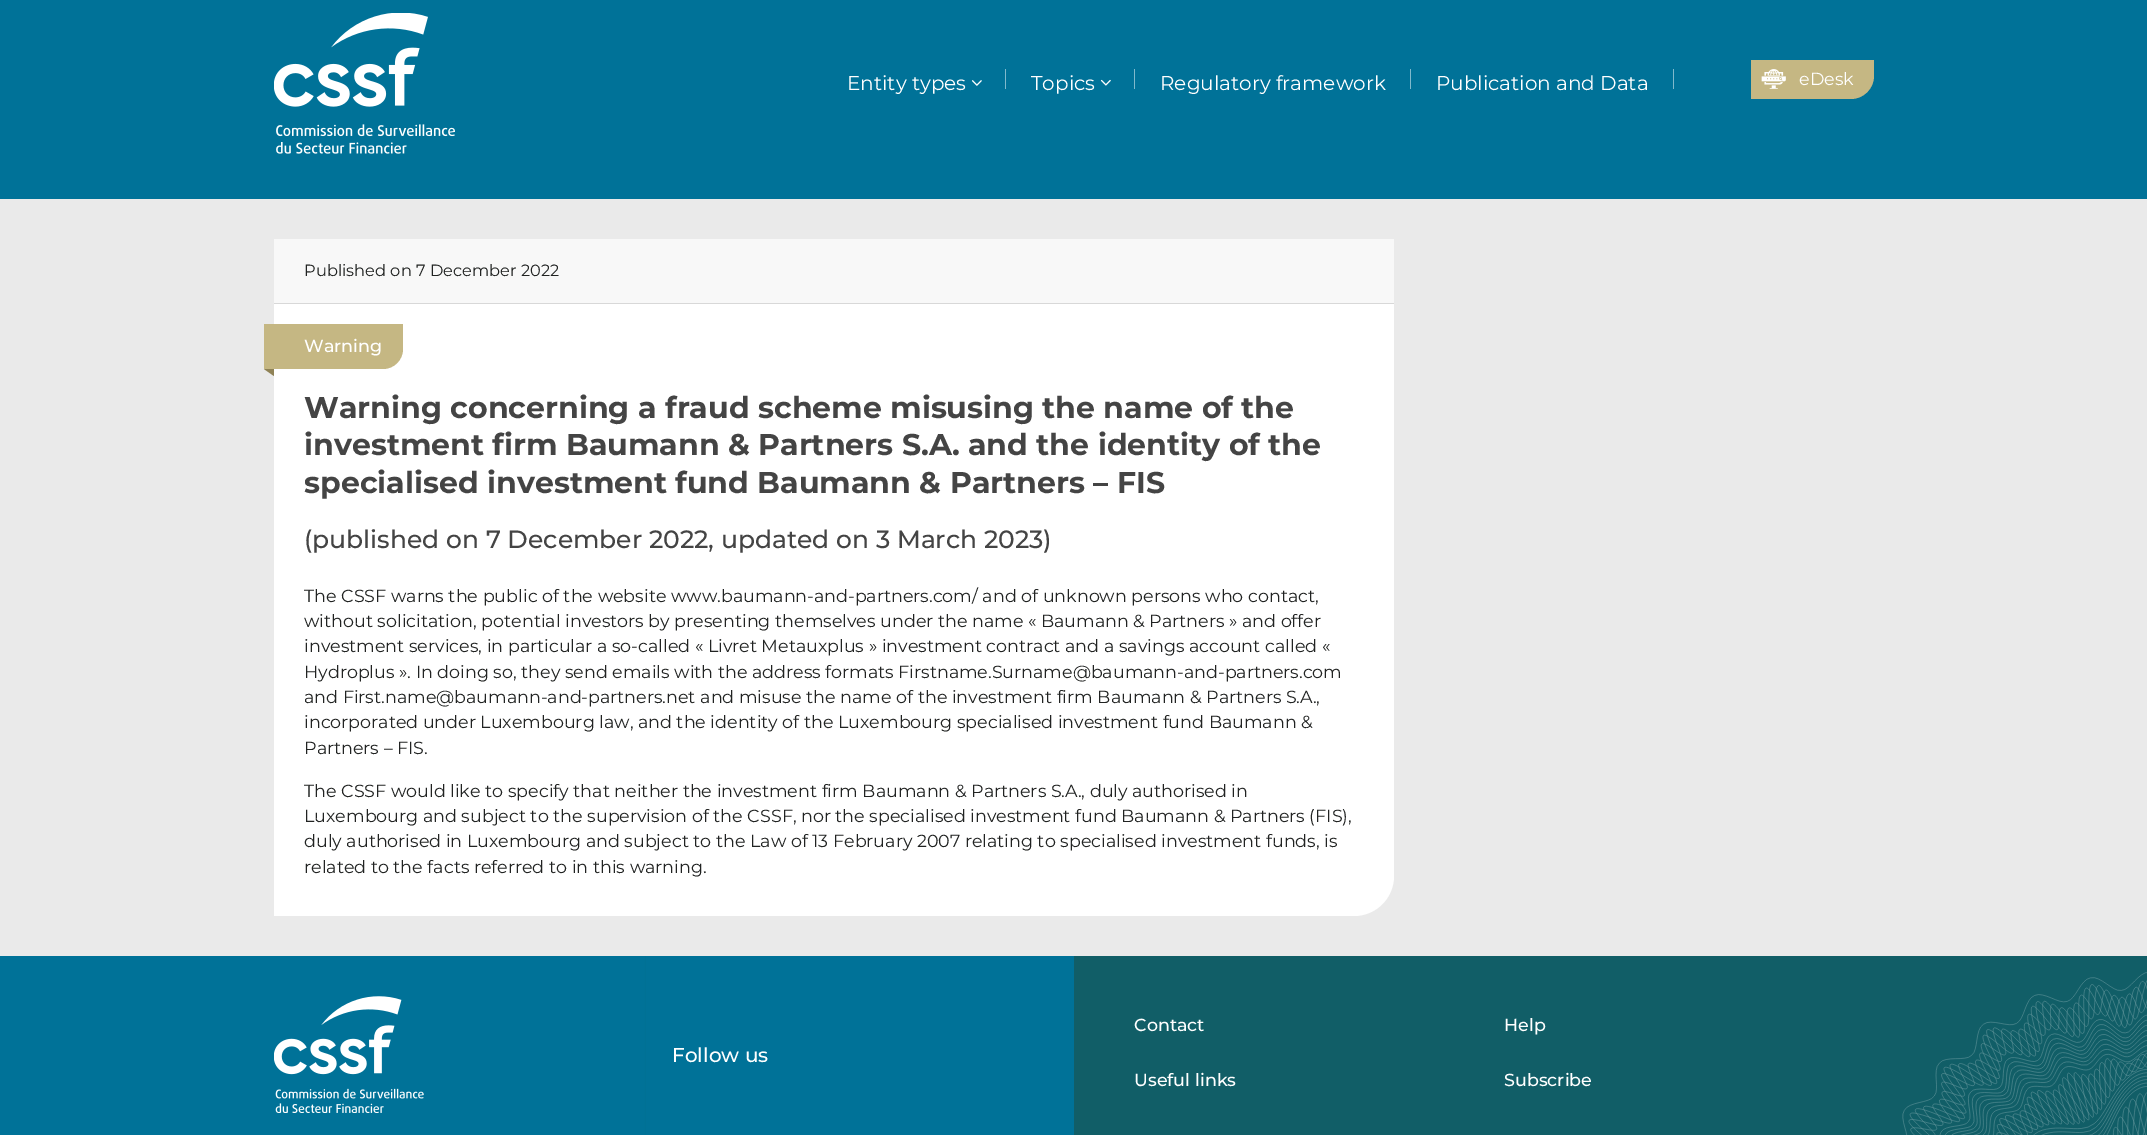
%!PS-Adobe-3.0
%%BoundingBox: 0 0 2147 1135
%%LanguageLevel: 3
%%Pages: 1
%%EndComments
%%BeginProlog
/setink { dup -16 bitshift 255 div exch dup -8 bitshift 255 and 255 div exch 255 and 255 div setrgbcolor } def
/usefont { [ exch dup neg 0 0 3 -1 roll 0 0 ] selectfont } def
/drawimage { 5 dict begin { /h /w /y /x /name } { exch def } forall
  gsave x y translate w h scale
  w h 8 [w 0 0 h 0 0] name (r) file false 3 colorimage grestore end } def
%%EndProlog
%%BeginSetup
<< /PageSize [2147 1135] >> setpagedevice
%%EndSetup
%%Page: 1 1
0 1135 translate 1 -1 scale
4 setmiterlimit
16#EAEAEA setink
0 0 2147 1135 rectfill
16#007298 setink
0 0 2147 199 rectfill
(img1.raw) 274 13 181 141 drawimage
/Montserrat-Regular 20 usefont
16#FFFFFF setink
847 90 moveto (Entity types) show
(img2.raw) 971 80 11 6 drawimage
16#80B9CC setink
1005 69 1 20 rectfill
16#FFFFFF setink
1031 90 moveto (Topics) show
(img3.raw) 1100 79 11 7 drawimage
16#80B9CC setink
1134 69 1 20 rectfill
16#FFFFFF setink
1160 90 moveto (Regulatory framework) show
16#80B9CC setink
1410 69 1 20 rectfill
16#FFFFFF setink
1436 90 moveto (Publication and Data) show
16#80B9CC setink
1673 69 1 20 rectfill
16#C5B783 setink
1751 60 moveto 1874 60 lineto 1874 76 lineto 1874 88.5 1863.5 99 1851 99 curveto 1751 99 lineto closepath fill
(img4.raw) 1761 69 25 20 drawimage
/Montserrat-Regular 17.5 usefont
16#FFFFFF setink
1799 85 moveto (eDesk) show
16#F8F8F8 setink
274 239 1120 64 rectfill
16#D8D8D8 setink
274 303 1120 1 rectfill
/Montserrat-Regular 16.25 usefont
16#212322 setink
304 276 moveto (Published on 7 December 2022) show
16#FFFFFF setink
274 304 moveto 1394 304 lineto 1394 876 lineto 1394 898 1376 916 1354 916 curveto 274 916 lineto closepath fill
16#C5B783 setink
264 324 moveto 403 324 lineto 403 349 lineto 403 360 394 369 383 369 curveto 264 369 lineto closepath fill
/Montserrat-Medium 17.5 usefont
16#FFFFFF setink
304 352 moveto (Warning) show
16#8F8256 setink
274 369 moveto 274 376 lineto 264 369 lineto closepath fill
/Montserrat-Bold 30 usefont
16#444444 setink
[
    [(Warning concerning a fraud scheme misusing the name of the) 304 418]
    [(investment firm Baumann & Partners S.A. and the identity of the) 304 455]
    [(specialised investment fund Baumann & Partners – FIS) 304 493]
] { aload pop moveto show } forall
/Montserrat-Medium 25 usefont
304 548 moveto (\(published on 7 December 2022, updated on 3 March 2023\)) show
/Montserrat-Regular 17.5 usefont
16#212322 setink
[
    [(The CSSF warns the public of the website www.baumann-and-partners.com/ and of unknown persons who contact,) 304 602]
    [(without solicitation, potential investors by presenting themselves under the name « Baumann & Partners » and offer) 304 627]
    [(investment services, in particular a so-called « Livret Metauxplus » investment contract and a savings account called «) 304 652]
    [(Hydroplus ». In doing so, they send emails with the address formats Firstname.Surname@baumann-and-partners.com) 304 678]
    [(and First.name@baumann-and-partners.net and misuse the name of the investment firm Baumann & Partners S.A.,) 304 703]
    [(incorporated under Luxembourg law, and the identity of the Luxembourg specialised investment fund Baumann &) 304 728]
    [(Partners – FIS.) 304 754]
    [(The CSSF would like to specify that neither the investment firm Baumann & Partners S.A., duly authorised in) 304 797]
    [(Luxembourg and subject to the supervision of the CSSF, nor the specialised investment fund Baumann & Partners \(FIS\),) 304 822]
    [(duly authorised in Luxembourg and subject to the Law of 13 February 2007 relating to specialised investment funds, is) 304 847]
    [(related to the facts referred to in this warning.) 304 873]
] { aload pop moveto show } forall
gsave 0 956 moveto 2147 956 lineto 2147 1135 lineto 0 1135 lineto closepath clip newpath
<< /ShadingType 2 /ColorSpace /DeviceRGB /Coords [0 1105 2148 1105] /Extend [true true] /Function << /FunctionType 3 /Domain [0 1] /Functions [<< /FunctionType 2 /Domain [0 1] /C0 [0 0.447 0.596] /C1 [0 0.447 0.596] /N 1 >> << /FunctionType 2 /Domain [0 1] /C0 [0 0.447 0.596] /C1 [0.067 0.369 0.404] /N 1 >> << /FunctionType 2 /Domain [0 1] /C0 [0.067 0.369 0.404] /C1 [0.067 0.369 0.404] /N 1 >>] /Bounds [0.3 0.31] /Encode [0 1 0 1 0 1] >> >> shfill grestore
16#007298 setink
646 956 428 179 rectfill
(img5.raw) 274 996 150 117 drawimage
/Montserrat-Medium 20 usefont
16#FFFFFF setink
672 1062 moveto (Follow us) show
/Montserrat-Medium 17.5 usefont
[
    [(Contact) 1134 1031]
    [(Help) 1504 1031]
    [(Useful links) 1134 1086]
    [(Subscribe) 1504 1086]
] { aload pop moveto show } forall
(img6.raw) 1902 972 245 163 drawimage
showpage
%%EOF
